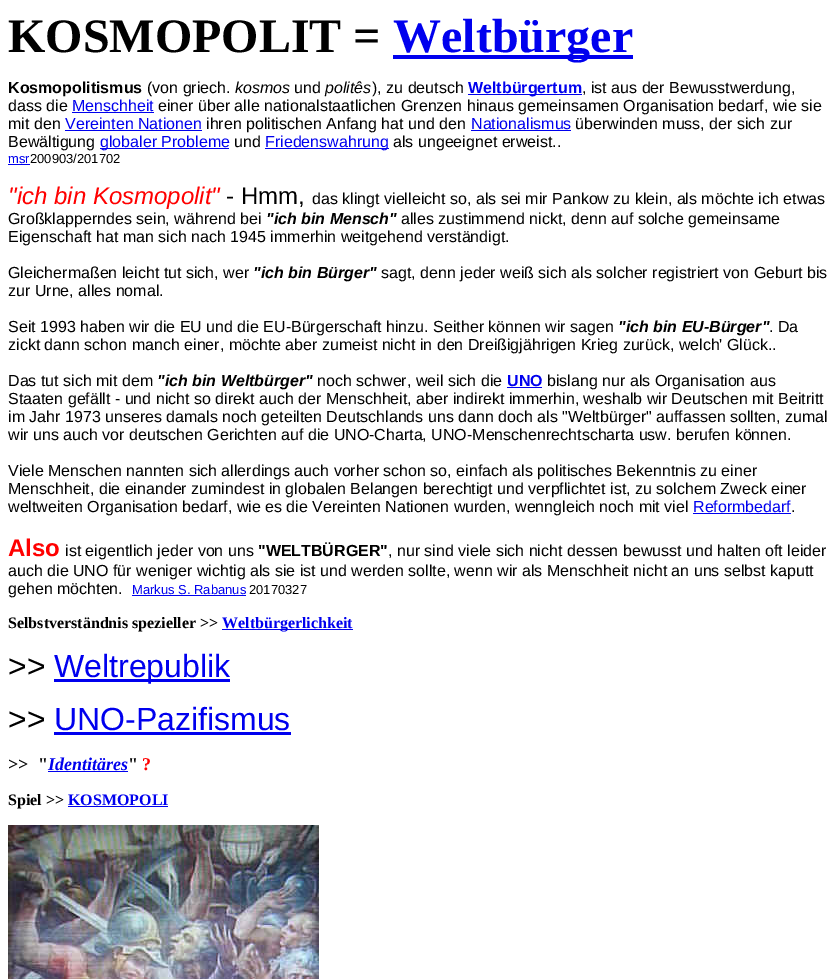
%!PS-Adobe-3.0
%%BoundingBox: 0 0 837 979
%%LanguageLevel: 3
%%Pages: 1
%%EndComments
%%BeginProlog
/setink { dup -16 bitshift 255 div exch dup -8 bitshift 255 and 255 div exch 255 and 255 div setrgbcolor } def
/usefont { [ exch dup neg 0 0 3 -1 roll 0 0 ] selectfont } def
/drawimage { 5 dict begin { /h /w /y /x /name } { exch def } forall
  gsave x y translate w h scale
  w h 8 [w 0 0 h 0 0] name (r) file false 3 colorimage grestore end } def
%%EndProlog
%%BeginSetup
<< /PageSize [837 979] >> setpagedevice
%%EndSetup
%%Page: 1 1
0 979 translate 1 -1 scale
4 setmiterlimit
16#FFFFFF setink
0 0 837 979 rectfill
/LiberationSerif-Bold 48 usefont
16#000000 setink
8 52 moveto (KOSMOPOLIT =) show
16#0000EE setink
393 55 240 4 rectfill
393 52 moveto (Weltbürger) show
/LiberationSans-Bold 16 usefont
16#000000 setink
8 93 moveto (Kosmopolitismus) show
/LiberationSans-Regular 16 usefont
147 93 moveto (\(von griech.) show
/LiberationSans-Italic 16 usefont
235 93 moveto (kosmos) show
/LiberationSans-Regular 16 usefont
294 93 moveto (und) show
/LiberationSans-Italic 16 usefont
325 93 moveto (politês) show
/LiberationSans-Regular 16 usefont
372 93 moveto (\), zu deutsch) show
16#0000EE setink
468 94 114 1 rectfill
/LiberationSans-Bold 16 usefont
468 93 moveto (Weltbürgertum) show
/LiberationSans-Regular 16 usefont
16#000000 setink
582 93 moveto (, ist aus der Bewusstwerdung,) show
8 111 moveto (dass die) show
16#0000EE setink
72 111 moveto (Menschheit) show
72 112 82 1 rectfill
16#000000 setink
158 111 moveto (einer über alle nationalstaatlichen Grenzen hinaus gemeinsamen Organisation bedarf, wie sie) show
8 129 moveto (mit den) show
16#0000EE setink
65 129 moveto (Vereinten Nationen) show
65 130 137 1 rectfill
16#000000 setink
206 129 moveto (ihren politischen Anfang hat und den) show
16#0000EE setink
471 129 moveto (Nationalismus) show
471 130 100 1 rectfill
16#000000 setink
575 129 moveto (überwinden muss, der sich zur) show
8 147 moveto (Bewältigung) show
16#0000EE setink
100 148 129 1 rectfill
100 147 moveto (globaler Probleme) show
16#000000 setink
234 147 moveto (und) show
16#0000EE setink
265 148 124 1 rectfill
265 147 moveto (Friedenswahrung) show
16#000000 setink
393 147 moveto (als ungeeignet erweist..) show
/LiberationSans-Regular 13 usefont
16#0000EE setink
8 163 moveto (msr) show
8 164 22 1 rectfill
16#000000 setink
30 163 moveto (200903/201702) show
/LiberationSans-Italic 24 usefont
16#FF0000 setink
8 204 moveto ("ich bin Kosmopolit") show
/LiberationSans-Regular 24 usefont
16#000000 setink
226 204 moveto (- Hmm,) show
/LiberationSans-Regular 16 usefont
312 204 moveto (das klingt vielleicht so, als sei mir Pankow zu klein, als möchte ich etwas) show
8 224 moveto (Großklapperndes sein, während bei) show
/LiberationSans-BoldItalic 16 usefont
266 224 moveto ("ich bin Mensch") show
/LiberationSans-Regular 16 usefont
[
    [(alles zustimmend nickt, denn auf solche gemeinsame) 401 224]
    [(Eigenschaft hat man sich nach 1945 immerhin weitgehend verständigt.) 8 242]
    [(Gleichermaßen leicht tut sich, wer) 8 278]
] { aload pop moveto show } forall
/LiberationSans-BoldItalic 16 usefont
253 278 moveto ("ich bin Bürger") show
/LiberationSans-Regular 16 usefont
[
    [(sagt, denn jeder weiß sich als solcher registriert von Geburt bis) 381 278]
    [(zur Urne, alles nomal.) 8 296]
    [(Seit 1993 haben wir die EU und die EU-Bürgerschaft hinzu. Seither können wir sagen) 8 332]
] { aload pop moveto show } forall
/LiberationSans-BoldItalic 16 usefont
618 332 moveto ("ich bin EU-Bürger") show
/LiberationSans-Regular 16 usefont
[
    [(. Da) 769 332]
    [(zickt dann schon manch einer, möchte aber zumeist nicht in den Dreißigjährigen Krieg zurück, welch' Glück..) 8 350]
    [(Das tut sich mit dem) 8 386]
] { aload pop moveto show } forall
/LiberationSans-BoldItalic 16 usefont
157 386 moveto ("ich bin Weltbürger") show
/LiberationSans-Regular 16 usefont
317 386 moveto (noch schwer, weil sich die) show
/LiberationSans-Bold 16 usefont
16#0000EE setink
507 386 moveto (UNO) show
507 387 35 1 rectfill
/LiberationSans-Regular 16 usefont
16#000000 setink
[
    [(bislang nur als Organisation aus) 547 386]
    [(Staaten gefällt - und nicht so direkt auch der Menschheit, aber indirekt immerhin, weshalb wir Deutschen mit Beitritt) 8 404]
    [(im Jahr 1973 unseres damals noch geteilten Deutschlands uns dann doch als "Weltbürger" auffassen sollten, zumal) 8 422]
    [(wir uns auch vor deutschen Gerichten auf die UNO-Charta, UNO-Menschenrechtscharta usw. berufen können.) 8 440]
    [(Viele Menschen nannten sich allerdings auch vorher schon so, einfach als politisches Bekenntnis zu einer) 8 476]
    [(Menschheit, die einander zumindest in globalen Belangen berechtigt und verpflichtet ist, zu solchem Zweck einer) 8 494]
    [(weltweiten Organisation bedarf, wie es die Vereinten Nationen wurden, wenngleich noch mit viel) 8 512]
] { aload pop moveto show } forall
16#0000EE setink
693 512 moveto (Reformbedarf) show
16#000000 setink
791 512 moveto (.) show
16#0000EE setink
693 513 98 1 rectfill
/LiberationSans-Bold 24 usefont
16#FF0000 setink
8 556 moveto (Also) show
/LiberationSans-Regular 16 usefont
16#000000 setink
65 556 moveto (ist eigentlich jeder von uns) show
/LiberationSans-Bold 16 usefont
258 556 moveto ("WELTBÜRGER") show
/LiberationSans-Regular 16 usefont
[
    [(, nur sind viele sich nicht dessen bewusst und halten oft leider) 388 556]
    [(auch die UNO für weniger wichtig als sie ist und werden sollte, wenn wir als Menschheit nicht an uns selbst kaputt) 8 576]
    [(gehen möchten.) 8 594]
] { aload pop moveto show } forall
/LiberationSans-Regular 13 usefont
16#0000EE setink
132 594 moveto (Markus S. Rabanus) show
132 595 114 1 rectfill
16#000000 setink
249 594 moveto (20170327) show
/LiberationSerif-Bold 16 usefont
8 628 moveto (Selbstverständnis spezieller >>) show
16#0000EE setink
222 629 131 1 rectfill
222 628 moveto (Weltbürgerlichkeit) show
/LiberationSans-Regular 32 usefont
16#000000 setink
8 677 moveto (>>) show
16#0000EE setink
54 679 176 3 rectfill
54 677 moveto (Weltrepublik) show
16#000000 setink
8 730 moveto (>>) show
16#0000EE setink
54 730 moveto (UNO-Pazifismus) show
54 732 237 3 rectfill
/LiberationSerif-Bold 18 usefont
16#000000 setink
8 770 moveto (>>  ") show
/LiberationSerif-BoldItalic 18 usefont
16#0000EE setink
48 770 moveto (Identitäres) show
48 771 80 1 rectfill
/LiberationSerif-Bold 18 usefont
16#000000 setink
128 770 moveto (") show
16#FF0000 setink
142 770 moveto (?) show
/LiberationSerif-Bold 16 usefont
16#000000 setink
8 805 moveto (Spiel >>) show
16#0000EE setink
68 805 moveto (KOSMOPOLI) show
68 806 100 1 rectfill
(img1.raw) 8 825 311 154 drawimage
showpage
%%EOF
